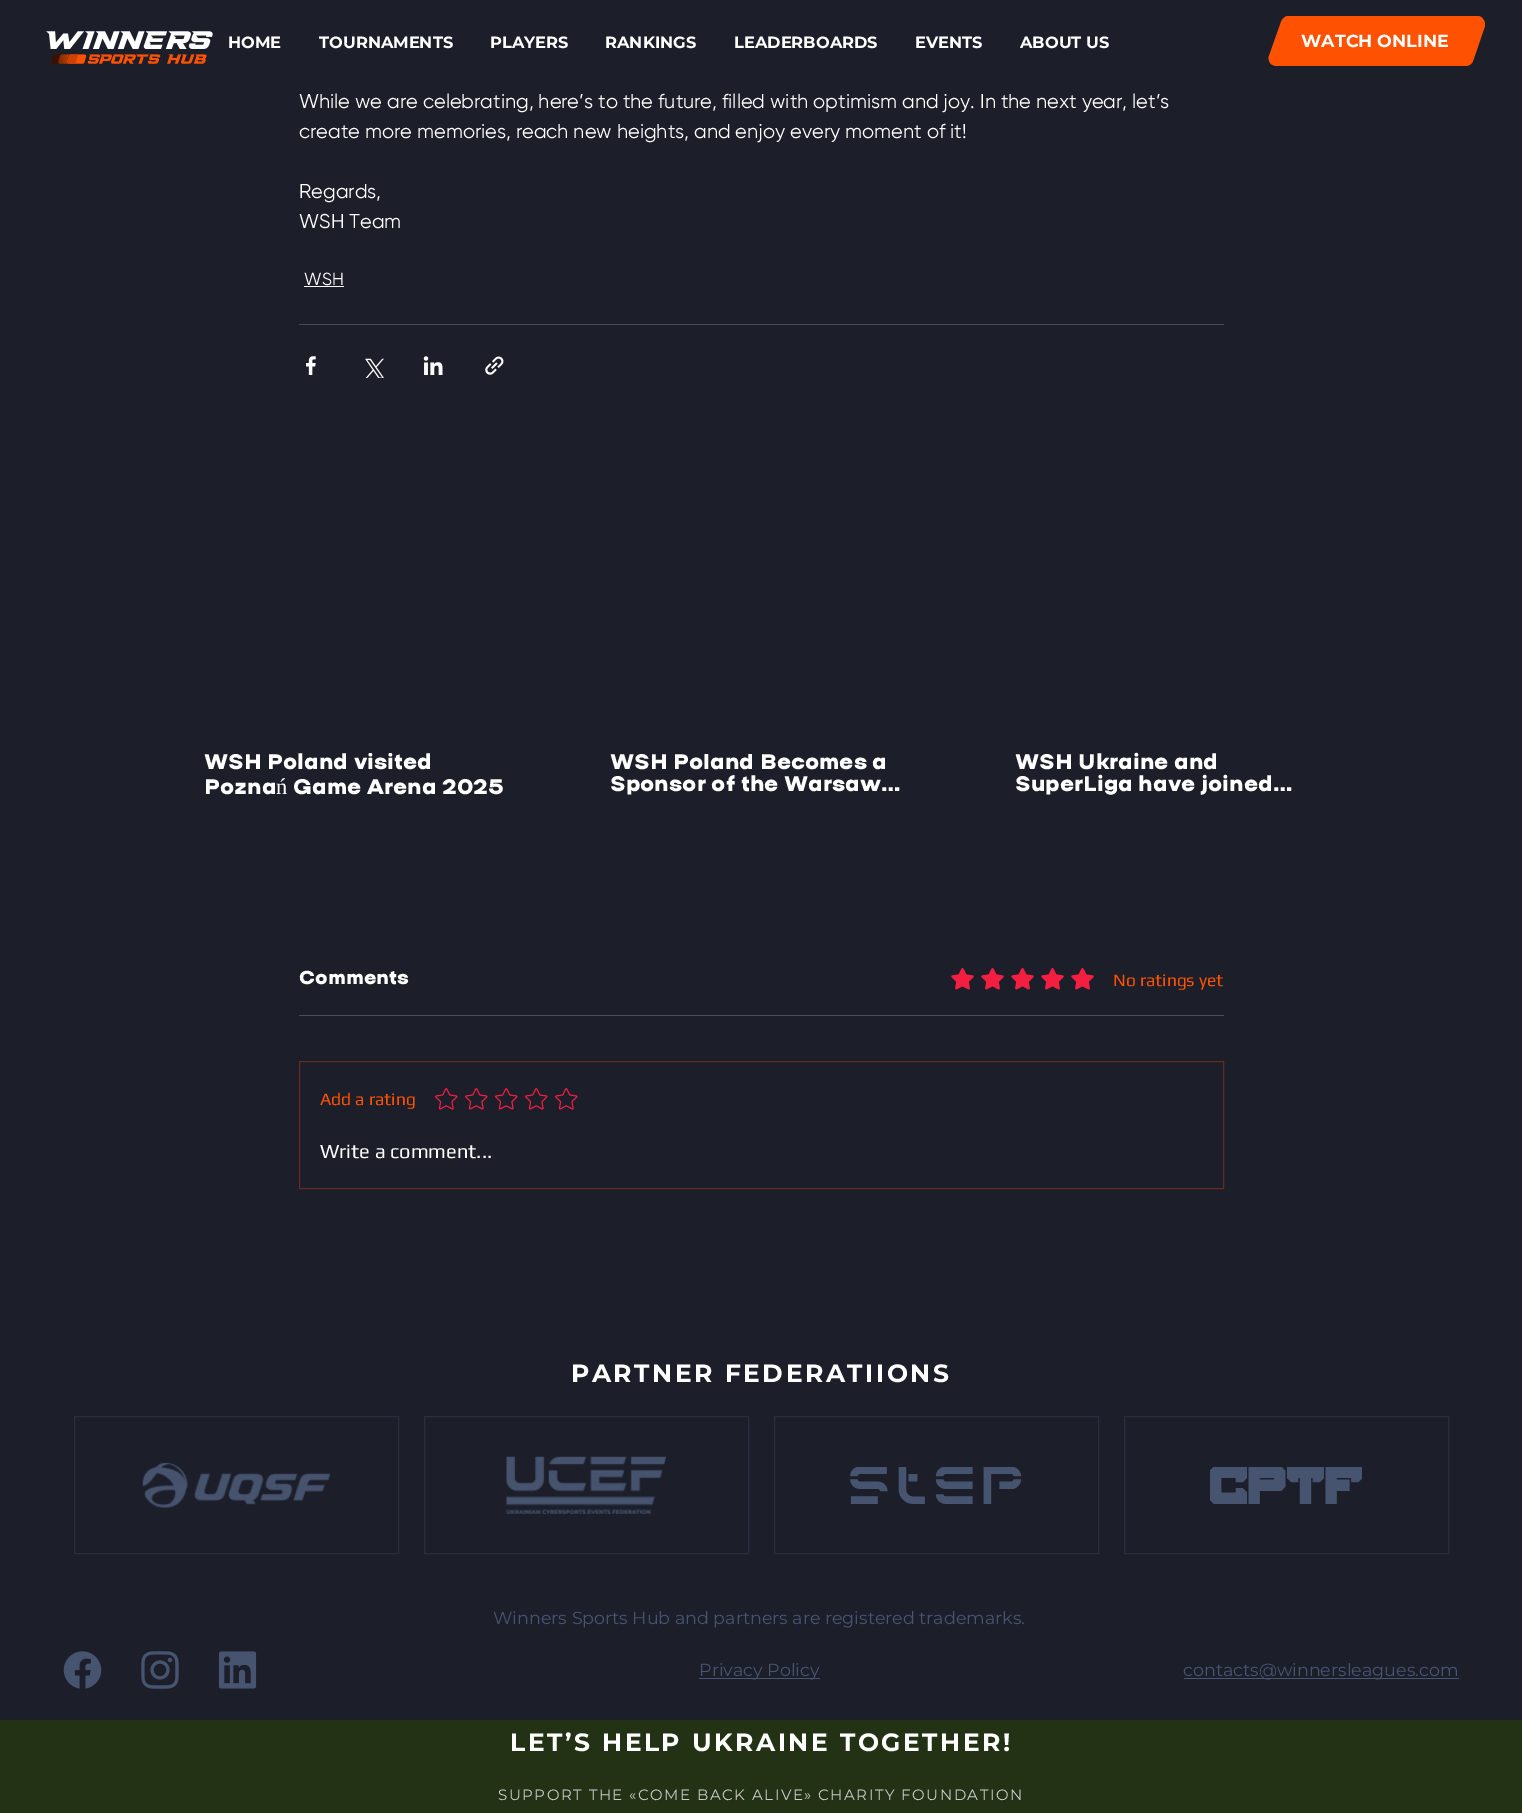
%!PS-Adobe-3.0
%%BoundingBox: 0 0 1522 1813
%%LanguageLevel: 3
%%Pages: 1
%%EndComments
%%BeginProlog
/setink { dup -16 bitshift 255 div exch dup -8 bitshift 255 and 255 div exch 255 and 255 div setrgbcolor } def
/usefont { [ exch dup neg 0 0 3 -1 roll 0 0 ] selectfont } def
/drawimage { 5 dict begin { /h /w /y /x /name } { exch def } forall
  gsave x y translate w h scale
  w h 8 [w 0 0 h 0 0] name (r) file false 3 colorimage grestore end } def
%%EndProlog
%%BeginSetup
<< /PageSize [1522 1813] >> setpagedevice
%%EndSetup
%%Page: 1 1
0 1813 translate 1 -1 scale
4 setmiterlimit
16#1C1E2A setink
0 0 1522 1813 rectfill
(img1.raw) 46 31 167 33 drawimage
16#FF5102 setink
1288 16 moveto 1477 16 lineto 1480 16 1482 17 1483 19 curveto 1485 21 1485 24 1485 26 curveto 1473 61 lineto 1472 64 1469 66 1466 66 curveto 1277 66 lineto 1274 66 1272 65 1270 63 curveto 1269 61 1268 58 1269 56 curveto 1281 22 lineto 1282 19 1285 16 1288 16 curveto closepath fill
/Montserrat-Bold 16.25 usefont
16#FFFFFF setink
[
    [(HOME) 228 48]
    [(TOURNAMENTS) 319 48]
    [(PLAYERS) 490 48]
    [(RANKINGS) 605 48]
    [(LEADERBOARDS) 734 48]
    [(EVENTS) 915 48]
    [(ABOUT US) 1020 48]
] { aload pop moveto show } forall
/Montserrat-Bold 17.5 usefont
1301 47 moveto (WATCH ONLINE) show
/Gilroy-Regular 20 usefont
[
    [(While we are celebrating, here’s to the future, filled with optimism and joy. In the next year, let’s) 299 108]
    [(create more memories, reach new heights, and enjoy every moment of it!) 299 138]
    [(Regards,) 299 198]
    [(WSH Team) 299 228]
] { aload pop moveto show } forall
/Gilroy-Regular 17.5 usefont
304 285 moveto (WSH) show
304 286 40 1 rectfill
16#494B55 setink
299 324 925 1 rectfill
(img2.raw) 306 356 10 19 drawimage
(img3.raw) 365 358 19 20 drawimage
(img4.raw) 423 356 20 19 drawimage
(img5.raw) 485 356 19 19 drawimage
gsave
204 753 304 47 rectclip
/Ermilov-Bold 22.5 usefont
16#FFFFFF setink
204 769 moveto (WSH Poland visited) show
grestore
/Ermilov-Bold 22.5 usefont
16#FFFFFF setink
204 794 moveto (Pozna) show
/LiberationSerif-Regular 22.5 usefont
276 794 moveto (ń) show
/Ermilov-Bold 22.5 usefont
293 794 moveto (Game Arena 2025) show
gsave
610 754 303 42 rectclip
610 769 moveto (WSH Poland Becomes a) show
grestore
[
    [(Sponsor of the Warsaw…) 610 791]
    [(WSH Ukraine and) 1015 769]
    [(SuperLiga have joined…) 1015 791]
] { aload pop moveto show } forall
/Ermilov-Bold 20 usefont
299 984 moveto (Comments) show
(img6.raw) 951 968 23 22 drawimage
(img6.raw) 981 968 23 22 drawimage
(img6.raw) 1011 968 23 22 drawimage
(img6.raw) 1041 968 23 22 drawimage
(img6.raw) 1071 968 23 22 drawimage
/Play-Regular 17.5 usefont
16#FF5102 setink
1113 986 moveto (No ratings yet) show
16#494B55 setink
299 1015 925 1 rectfill
16#602D1E setink
299.5 1061.5 924 127 rectstroke
16#FF5102 setink
320 1105 moveto (Add a rating) show
(img7.raw) 435 1088 23 22 drawimage
(img7.raw) 465 1088 23 22 drawimage
(img7.raw) 495 1088 23 22 drawimage
(img7.raw) 525 1088 23 22 drawimage
(img7.raw) 555 1088 23 22 drawimage
/Play-Regular 20 usefont
16#FFFFFF setink
320 1158 moveto (Write a comment...) show
/Montserrat-Bold 25 usefont
571 1382 moveto 2.5 0 (PARTNER FEDERATIIONS) ashow
16#292E3F setink
74.5 1416.5 324 137 rectstroke
(img8.raw) 142 1462 188 46 drawimage
424.5 1416.5 324 137 rectstroke
(img9.raw) 506 1456 160 58 drawimage
774.5 1416.5 324 137 rectstroke
(img10.raw) 850 1467 171 37 drawimage
1124.5 1416.5 324 137 rectstroke
(img11.raw) 1210 1467 152 37 drawimage
/Montserrat-Regular 17.5 usefont
16#485470 setink
493 1624 moveto (Winners Sports Hub and partners are registered trademarks.) show
(img12.raw) 63 1651 39 38 drawimage
(img13.raw) 141 1651 38 38 drawimage
(img14.raw) 218 1651 39 38 drawimage
699 1678 121 1 rectfill
699 1676 moveto (Privacy Policy) show
1184 1678 275 1 rectfill
1183 1676 moveto (contacts@winnersleagues.com) show
16#233215 setink
0 1720 1522 93 rectfill
/Montserrat-Bold 25 usefont
16#FFFFFF setink
510 1751 moveto 2.5 0 (LET’S HELP UKRAINE TOGETHER!) ashow
/Montserrat-Regular 15 usefont
16#CCCCCC setink
498 1800 moveto 1.5 0 (SUPPORT THE «СOME BACK ALIVE» СHARITY FOUNDATION) ashow
showpage
%%EOF
